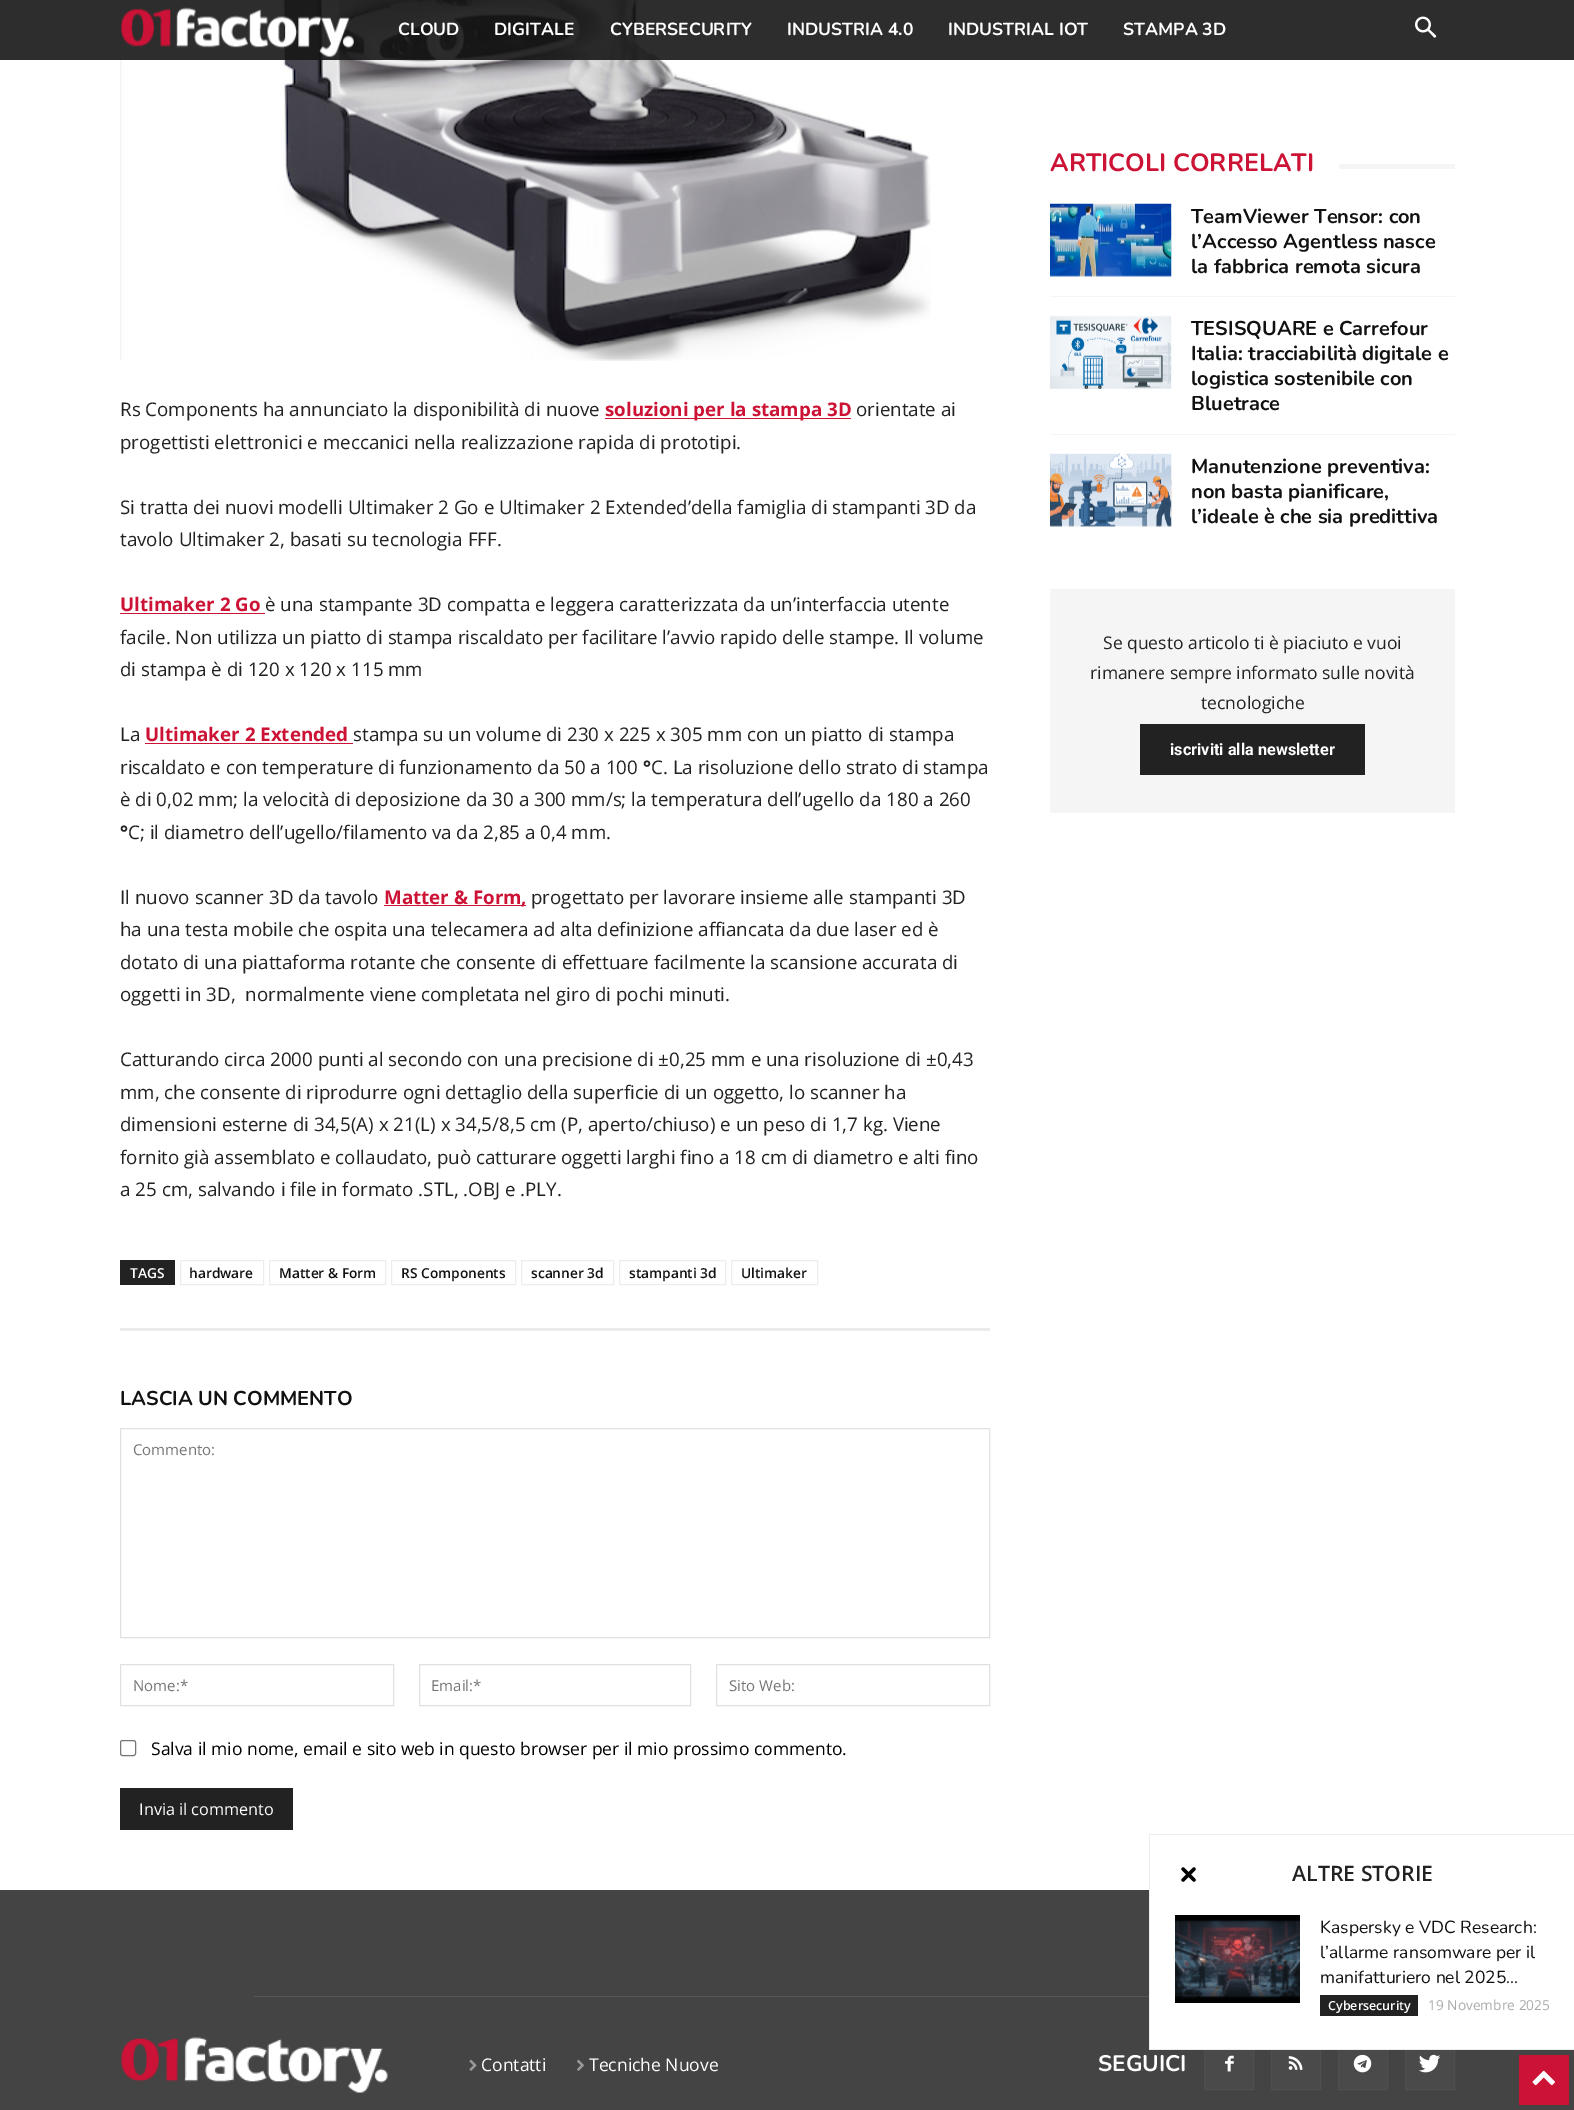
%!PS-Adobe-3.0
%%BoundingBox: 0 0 1574 2110
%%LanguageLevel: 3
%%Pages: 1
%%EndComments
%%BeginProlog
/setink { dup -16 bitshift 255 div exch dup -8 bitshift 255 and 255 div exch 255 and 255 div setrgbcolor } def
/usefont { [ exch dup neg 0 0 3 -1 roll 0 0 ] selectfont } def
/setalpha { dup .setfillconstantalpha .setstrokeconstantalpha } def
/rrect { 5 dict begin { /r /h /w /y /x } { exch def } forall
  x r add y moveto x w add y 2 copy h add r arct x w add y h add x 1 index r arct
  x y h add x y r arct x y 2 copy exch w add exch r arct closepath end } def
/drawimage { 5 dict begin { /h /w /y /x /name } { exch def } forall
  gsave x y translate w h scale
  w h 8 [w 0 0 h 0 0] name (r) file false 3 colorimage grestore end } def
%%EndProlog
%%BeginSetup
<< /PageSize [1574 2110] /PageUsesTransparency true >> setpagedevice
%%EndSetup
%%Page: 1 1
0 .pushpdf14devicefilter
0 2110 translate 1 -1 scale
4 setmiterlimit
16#FFFFFF setink
0 0 1574 2110 rectfill
(img3.raw) 120 0 811 361 drawimage
0.9 setalpha
16#161616 setink
0 0 1574 60 rectfill
1 setalpha
(img1.raw) 121 7 233 51 drawimage
/Nunito-Bold 17.5 usefont
16#FFFFFF setink
[
    [(CLOUD) 398 35]
    [(DIGITALE) 494 35]
    [(CYBERSECURITY) 610 35]
    [(INDUSTRIA 4.0) 787 35]
    [(INDUSTRIAL IOT) 948 35]
    [(STAMPA 3D) 1123 35]
] { aload pop moveto show } forall
(img2.raw) 1415 16 22 22 drawimage
/OpenSans-Regular 18.75 usefont
16#222222 setink
120 416 moveto (Rs Components ha annunciato la disponibilità di nuove) show
16#CC1235 setink
605 418 246 1 rectfill
/OpenSans-Bold 18.75 usefont
605 416 moveto (soluzioni per la stampa 3D) show
/OpenSans-Regular 18.75 usefont
16#222222 setink
[
    [(orientate ai) 856 416]
    [(progettisti elettronici e meccanici nella realizzazione rapida di prototipi.) 120 449]
    [(Si tratta dei nuovi modelli Ultimaker 2 Go e Ultimaker 2 Extended’della famiglia di stampanti 3D da) 120 514]
    [(tavolo Ultimaker 2, basati su tecnologia FFF.) 120 546]
] { aload pop moveto show } forall
/OpenSans-Bold 18.75 usefont
16#CC1235 setink
120 611 moveto (Ultimaker 2 Go) show
120 613 145 1 rectfill
/OpenSans-Regular 18.75 usefont
16#222222 setink
[
    [(è una stampante 3D compatta e leggera caratterizzata da un’interfaccia utente) 265 611]
    [(facile. Non utilizza un piatto di stampa riscaldato per facilitare l’avvio rapido delle stampe. Il volume) 120 644]
    [(di stampa è di 120 x 120 x 115 mm) 120 676]
    [(La) 120 741]
] { aload pop moveto show } forall
/OpenSans-Bold 18.75 usefont
16#CC1235 setink
145 741 moveto (Ultimaker 2 Extended) show
145 743 208 1 rectfill
/OpenSans-Regular 18.75 usefont
16#222222 setink
353 741 moveto (stampa su un volume di 230 x 225 x 305 mm con un piatto di stampa) show
120 774 moveto (riscaldato e con temperature di funzionamento da 50 a 100) show
/OpenSans-Bold 18.75 usefont
643 774 moveto (°) show
/OpenSans-Regular 18.75 usefont
651 774 moveto (C. La risoluzione dello strato di stampa) show
120 806 moveto (è di 0,02 mm; la velocità di deposizione da 30 a 300 mm/s; la temperatura dell’ugello da 180 a 260) show
/OpenSans-Bold 18.75 usefont
120 839 moveto (°) show
/OpenSans-Regular 18.75 usefont
128 839 moveto (C; il diametro dell’ugello/filamento va da 2,85 a 0,4 mm.) show
120 904 moveto (Il nuovo scanner 3D da tavolo) show
16#CC1235 setink
384 905 142 1 rectfill
/OpenSans-Bold 18.75 usefont
384 904 moveto (Matter & Form,) show
/OpenSans-Regular 18.75 usefont
16#222222 setink
[
    [(progettato per lavorare insieme alle stampanti 3D) 531 904]
    [(ha una testa mobile che ospita una telecamera ad alta definizione affiancata da due laser ed è) 120 936]
    [(dotato di una piattaforma rotante che consente di effettuare facilmente la scansione accurata di) 120 969]
    [(oggetti in 3D,  normalmente viene completata nel giro di pochi minuti.) 120 1001]
    [(Catturando circa 2000 punti al secondo con una precisione di ±0,25 mm e una risoluzione di ±0,43) 120 1066]
    [(mm, che consente di riprodurre ogni dettaglio della superficie di un oggetto, lo scanner ha) 120 1099]
    [(dimensioni esterne di 34,5\(A\) x 21\(L\) x 34,5/8,5 cm \(P, aperto/chiuso\) e un peso di 1,7 kg. Viene) 120 1131]
    [(fornito già assemblato e collaudato, può catturare oggetti larghi fino a 18 cm di diametro e alti fino) 120 1164]
    [(a 25 cm, salvando i file in formato .STL, .OBJ e .PLY.) 120 1196]
] { aload pop moveto show } forall
120 1260 55 25 rectfill
/OpenSans-SemiBold 13.75 usefont
16#FFFFFF setink
130 1278 moveto (TAGS) show
16#EDEDED setink
180.5 1260.5 83 24 rectstroke
16#111111 setink
189 1278 moveto (hardware) show
16#EDEDED setink
269.5 1260.5 116 24 rectstroke
16#111111 setink
279 1278 moveto (Matter & Form) show
16#EDEDED setink
391.5 1260.5 124 24 rectstroke
16#111111 setink
401 1278 moveto (RS Components) show
16#EDEDED setink
521.5 1260.5 92 24 rectstroke
16#111111 setink
531 1278 moveto (scanner 3d) show
16#EDEDED setink
619.5 1260.5 106 24 rectstroke
16#111111 setink
629 1278 moveto (stampanti 3d) show
16#EDEDED setink
731.5 1260.5 86 24 rectstroke
16#111111 setink
741 1278 moveto (Ultimaker) show
16#EBEBEB setink
120 1328 870 3 rectfill
/Nunito-Bold 20 usefont
16#111111 setink
120 1405 moveto (LASCIA UN COMMENTO) show
16#E1E1E1 setink
120.5 1428.5 869 209 rectstroke
/OpenSans-Regular 15 usefont
16#757575 setink
133 1455 moveto (Commento:) show
16#E1E1E1 setink
120.5 1664.5 273 41 rectstroke
16#757575 setink
133 1691 moveto (Nome:*) show
16#E1E1E1 setink
419.5 1664.5 271 41 rectstroke
16#757575 setink
431 1691 moveto (Email:*) show
16#E1E1E1 setink
716.5 1664.5 273 41 rectstroke
16#757575 setink
729 1691 moveto (Sito Web:) show
16#767676 setink
120.5 1740.5 15 15 2 rrect stroke
/OpenSans-Regular 17.5 usefont
16#000000 setink
151 1755 moveto (Salva il mio nome, email e sito web in questo browser per il mio prossimo commento.) show
16#222222 setink
120 1788 173 42 rectfill
/OpenSans-Regular 16.25 usefont
16#FFFFFF setink
139 1815 moveto (Invia il commento) show
/Nunito-Bold 25 usefont
16#CC1235 setink
1050 171 moveto (ARTICOLI CORRELATI) show
16#F5F5F5 setink
1339 164 116 5 rectfill
(img4.raw) 1050 203 122 74 drawimage
/Nunito-Bold 20 usefont
16#111111 setink
[
    [(TeamViewer Tensor: con) 1191 223]
    [(l’Accesso Agentless nasce) 1191 248]
    [(la fabbrica remota sicura) 1191 273]
] { aload pop moveto show } forall
16#F5F5F5 setink
1050 296 405 1 rectfill
(img5.raw) 1050 315 122 74 drawimage
16#111111 setink
[
    [(TESISQUARE e Carrefour) 1191 335]
    [(Italia: tracciabilità digitale e) 1191 360]
    [(logistica sostenibile con) 1191 385]
    [(Bluetrace) 1191 410]
] { aload pop moveto show } forall
16#F5F5F5 setink
1050 434 405 1 rectfill
(img6.raw) 1050 453 122 74 drawimage
16#111111 setink
[
    [(Manutenzione preventiva:) 1191 473]
    [(non basta pianificare,) 1191 498]
    [(l’ideale è che sia predittiva) 1191 523]
] { aload pop moveto show } forall
16#F5F5F5 setink
1050 589 405 224 rectfill
/OpenSans-Regular 17.5 usefont
16#222222 setink
[
    [(Se questo articolo ti è piaciuto e vuoi) 1103 649]
    [(rimanere sempre informato sulle novità) 1090 679]
    [(tecnologiche) 1201 709]
] { aload pop moveto show } forall
1140 724 225 51 rectfill
/Roboto-Bold 16.25 usefont
16#FFFFFF setink
1170 755 moveto (iscriviti alla newsletter) show
16#444444 setink
0 1890 1574 220 rectfill
16#575757 setink
254 1996 895 1 rectfill
(img7.raw) 121 2037 267 56 drawimage
(img8.raw) 469 2059 8 12 drawimage
/OpenSans-Regular 17.5 usefont
16#FFFFFF setink
481 2071 moveto (Contatti) show
(img9.raw) 577 2059 7 12 drawimage
589 2071 moveto (Tecniche Nuove) show
/Nunito-Bold 22.5 usefont
1098 2071 moveto (SEGUICI) show
16#4A4A4A setink
1205 2050 48 39 rectfill
(img10.raw) 1225 2055 9 17 drawimage
16#4F4F4F setink
1204.5 2040.5 49 49 rectstroke
16#4A4A4A setink
1272 2050 48 39 rectfill
(img11.raw) 1288 2056 15 14 drawimage
16#4F4F4F setink
1271.5 2040.5 49 49 rectstroke
16#4A4A4A setink
1339 2050 48 39 rectfill
(img12.raw) 1353 2054 19 19 drawimage
16#4F4F4F setink
1338.5 2040.5 49 49 rectstroke
16#4A4A4A setink
1406 2050 48 39 rectfill
(img13.raw) 1419 2054 22 19 drawimage
16#4F4F4F setink
1405.5 2040.5 49 49 rectstroke
[
    [1150 1890 424 159 16#FFFFFF]
    [1149 1834 425 1 16#EDEDED]
    [1149 2049 425 1 16#EDEDED]
    [1149 1834 1 216 16#EDEDED]
] { aload pop setink rectfill } forall
(img14.raw) 1181 1867 15 15 drawimage
/OpenSans-SemiBold 21.25 usefont
16#222222 setink
1292 1881 moveto (ALTRE STORIE) show
(img15.raw) 1175 1915 125 88 drawimage
/Nunito-Regular 17.5 usefont
16#111111 setink
[
    [(Kaspersky e VDC Research:) 1320 1933]
    [(l’allarme ransomware per il) 1320 1958]
    [(manifatturiero nel 2025...) 1320 1983]
] { aload pop moveto show } forall
16#222222 setink
1320 1995 98 21 rectfill
/OpenSans-SemiBold 12.5 usefont
16#FFFFFF setink
1328 2010 moveto (Cybersecurity) show
/OpenSans-Regular 13.75 usefont
16#AAAAAA setink
1428 2010 moveto (19 Novembre 2025) show
16#CC1235 setink
1519 2055 50 50 rectfill
(img16.raw) 1532 2070 23 16 drawimage
.poppdf14devicefilter showpage
%%EOF
